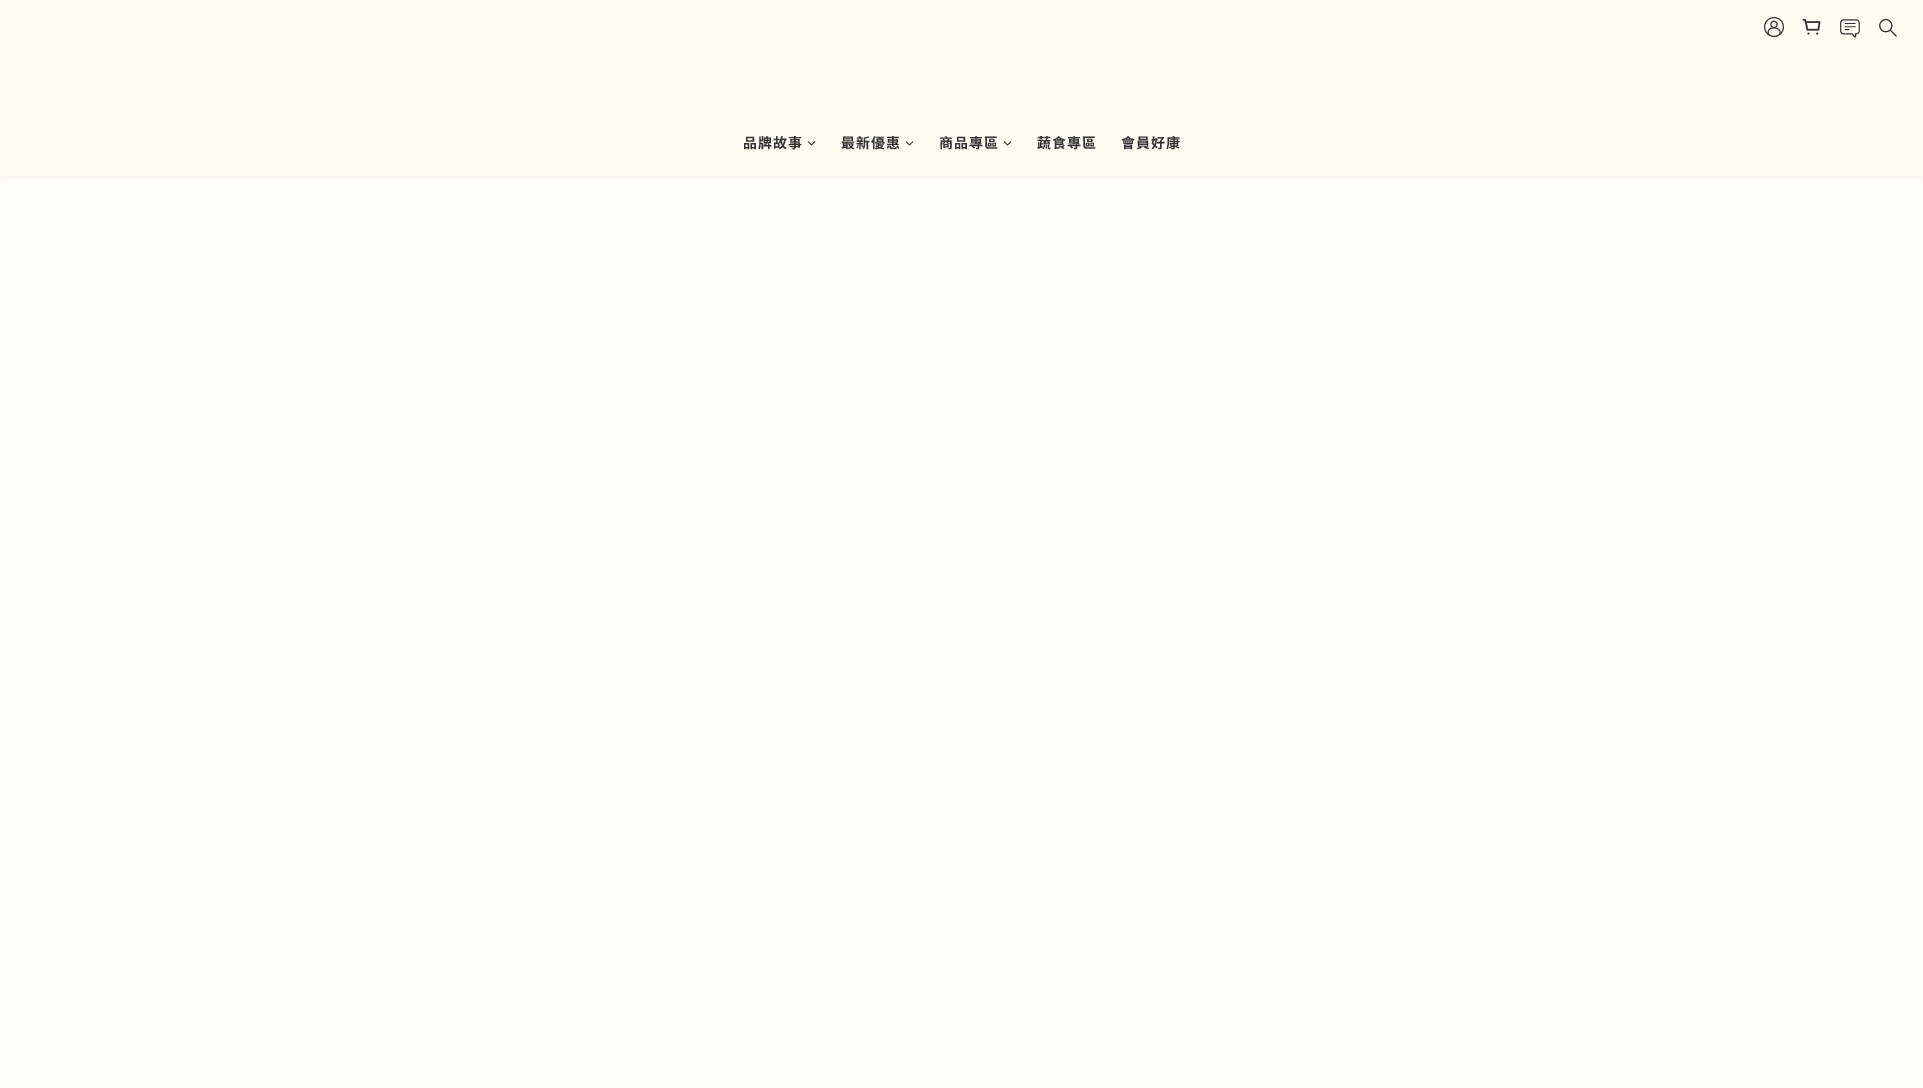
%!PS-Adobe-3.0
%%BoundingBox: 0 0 1923 1088
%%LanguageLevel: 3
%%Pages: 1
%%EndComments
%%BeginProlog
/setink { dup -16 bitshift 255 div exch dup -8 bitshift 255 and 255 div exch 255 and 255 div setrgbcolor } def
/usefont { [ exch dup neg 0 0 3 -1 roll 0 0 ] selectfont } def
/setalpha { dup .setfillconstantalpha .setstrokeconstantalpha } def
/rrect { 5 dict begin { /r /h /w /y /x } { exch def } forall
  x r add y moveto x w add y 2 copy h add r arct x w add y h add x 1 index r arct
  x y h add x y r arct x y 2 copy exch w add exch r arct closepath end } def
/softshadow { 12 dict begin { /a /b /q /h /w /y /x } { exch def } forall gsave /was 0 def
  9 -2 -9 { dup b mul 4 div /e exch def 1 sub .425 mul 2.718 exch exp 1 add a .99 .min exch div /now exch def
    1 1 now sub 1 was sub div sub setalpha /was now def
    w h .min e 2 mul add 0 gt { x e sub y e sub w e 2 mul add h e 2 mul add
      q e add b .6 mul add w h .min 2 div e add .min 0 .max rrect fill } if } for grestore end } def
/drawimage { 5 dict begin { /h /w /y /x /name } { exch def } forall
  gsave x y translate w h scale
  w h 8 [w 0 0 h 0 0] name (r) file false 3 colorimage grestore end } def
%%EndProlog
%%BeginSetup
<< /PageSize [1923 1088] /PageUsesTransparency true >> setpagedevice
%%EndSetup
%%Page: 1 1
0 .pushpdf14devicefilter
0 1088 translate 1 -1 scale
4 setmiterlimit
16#FFFFF7 setink
0 0 1923 1088 rectfill
16#000000 setink
0 2 1923 176 0 3 0.06 softshadow
16#FFFCF1 setink
0 0 1923 176 rectfill
(img1.raw) 1764 17 20 20 drawimage
(img2.raw) 1802 18 19 17 drawimage
(img3.raw) 1840 19 20 19 drawimage
(img4.raw) 1879 18 18 19 drawimage
/NotoSansTC-Bold 14 usefont
16#333333 setink
743 148 moveto 1 0 (品牌故事) ashow
(img5.raw) 807 141 9 5 drawimage
841 148 moveto 1 0 (最新優惠) ashow
(img5.raw) 905 141 9 5 drawimage
939 148 moveto 1 0 (商品專區) ashow
(img5.raw) 1003 141 9 5 drawimage
1037 148 moveto 1 0 (蔬食專區) ashow
1121 148 moveto 1 0 (會員好康) ashow
.poppdf14devicefilter showpage
%%EOF
